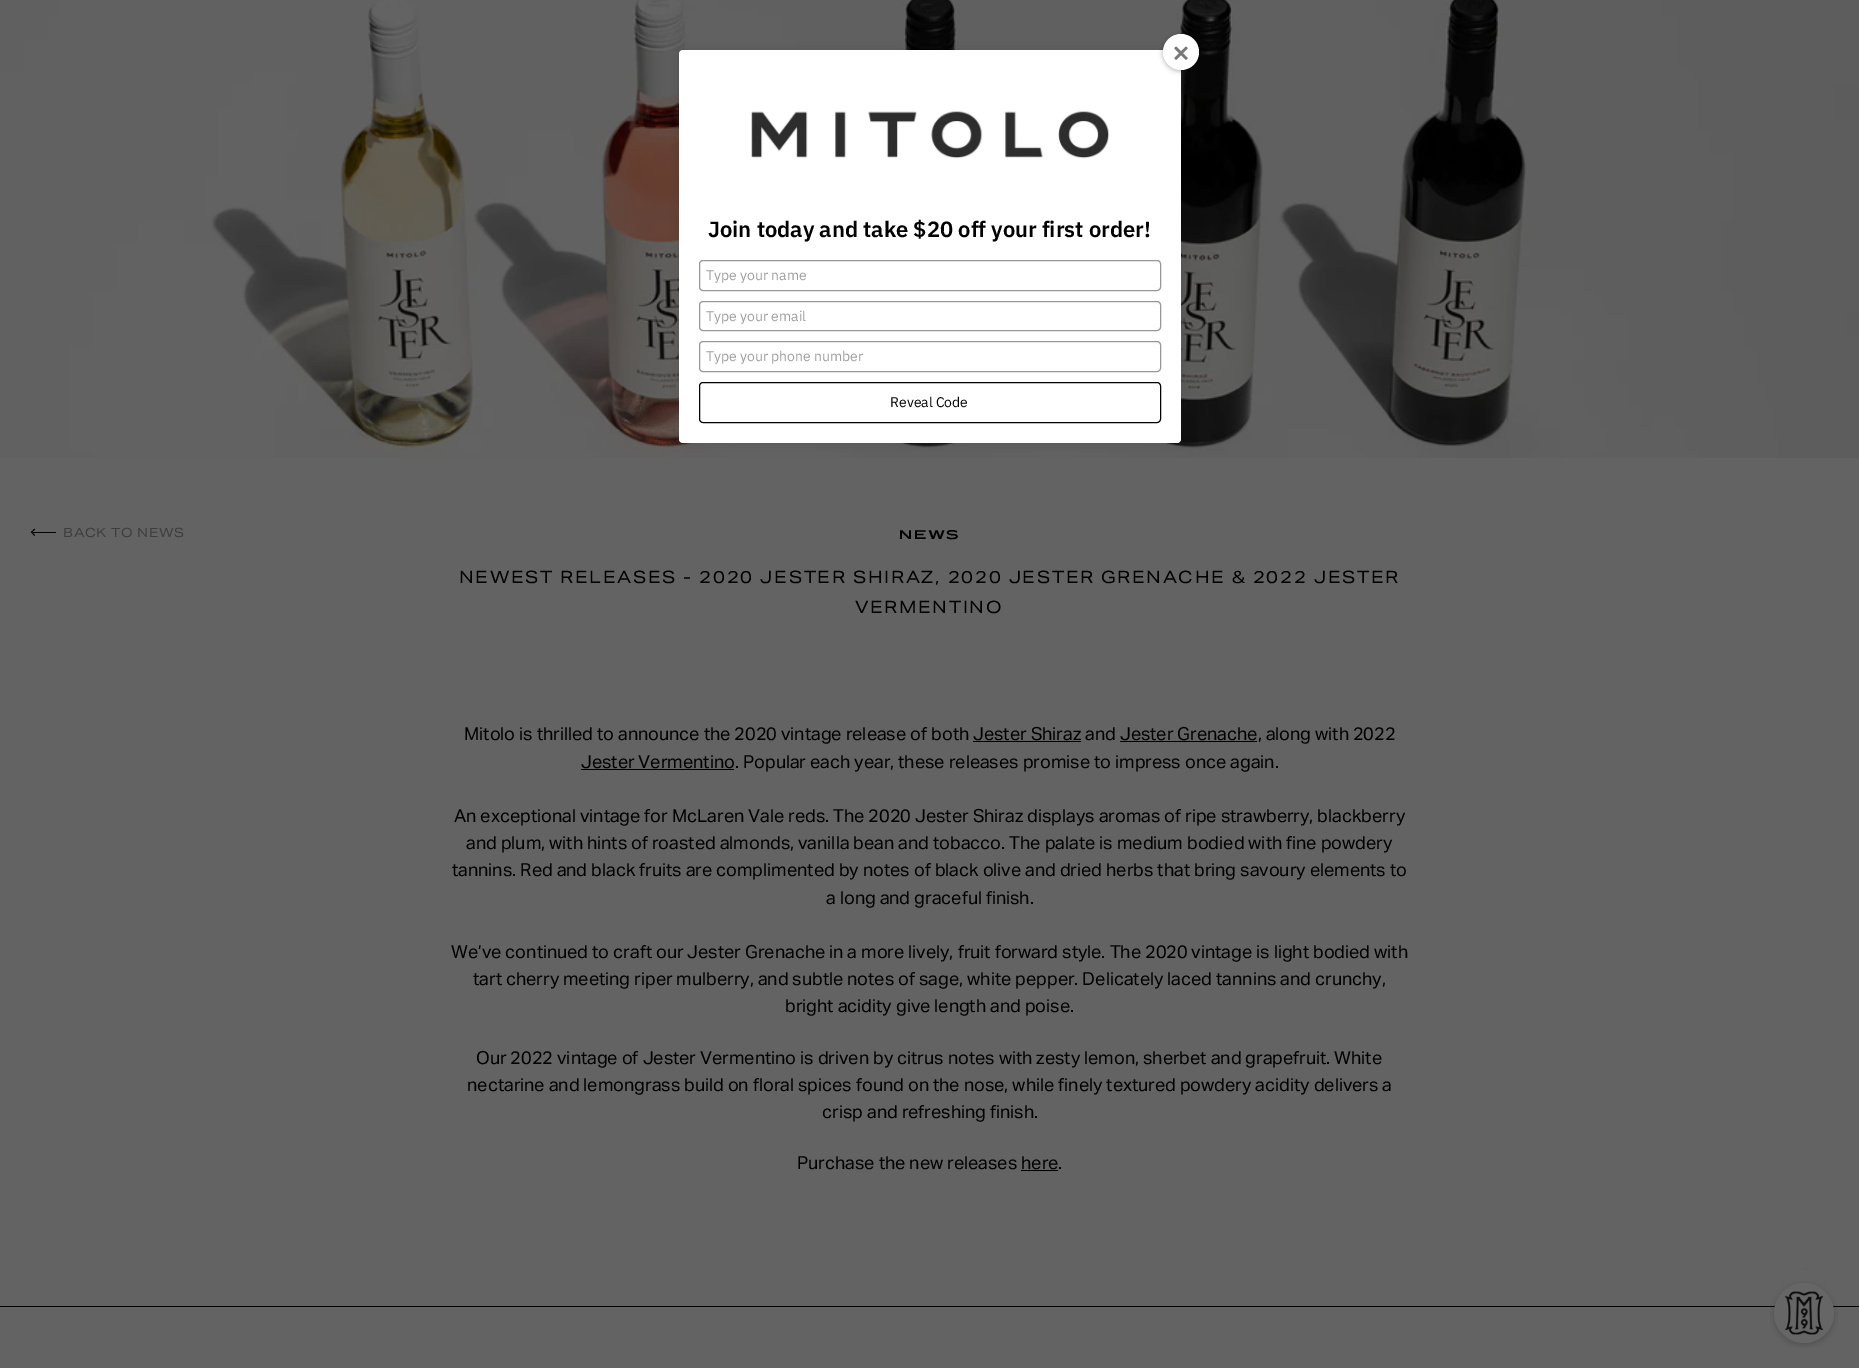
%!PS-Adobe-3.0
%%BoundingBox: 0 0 1859 1368
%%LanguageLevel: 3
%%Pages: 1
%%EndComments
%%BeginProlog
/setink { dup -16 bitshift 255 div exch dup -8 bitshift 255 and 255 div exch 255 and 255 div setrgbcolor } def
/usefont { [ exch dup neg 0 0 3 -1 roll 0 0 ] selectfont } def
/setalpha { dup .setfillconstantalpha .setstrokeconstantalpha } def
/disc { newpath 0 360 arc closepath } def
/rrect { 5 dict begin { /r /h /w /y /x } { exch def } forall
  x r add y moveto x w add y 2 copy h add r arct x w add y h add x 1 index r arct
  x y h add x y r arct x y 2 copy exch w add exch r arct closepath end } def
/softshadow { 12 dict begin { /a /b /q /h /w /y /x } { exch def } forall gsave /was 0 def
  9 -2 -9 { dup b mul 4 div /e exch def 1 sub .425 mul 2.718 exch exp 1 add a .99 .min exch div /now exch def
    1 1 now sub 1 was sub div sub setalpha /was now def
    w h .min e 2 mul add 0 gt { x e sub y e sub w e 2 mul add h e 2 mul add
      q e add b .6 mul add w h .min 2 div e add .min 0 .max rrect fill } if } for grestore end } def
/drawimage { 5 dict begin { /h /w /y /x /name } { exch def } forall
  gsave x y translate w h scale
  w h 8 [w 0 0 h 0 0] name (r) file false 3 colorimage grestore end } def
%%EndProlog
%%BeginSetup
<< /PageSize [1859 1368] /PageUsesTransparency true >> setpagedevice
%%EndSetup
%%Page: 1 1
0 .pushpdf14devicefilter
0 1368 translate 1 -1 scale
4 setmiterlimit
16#636363 setink
0 0 1859 1368 rectfill
(img3.raw) 0 0 1859 458 drawimage
16#000000 setink
679 50 502 393 4 7.5 0.1 softshadow
16#FFFFFF setink
679 50 502 393 4 rrect fill
16#000000 setink
1163 35 36 36 18 2.5 0.3 softshadow
16#FFFFFF setink
1181 52 18 disc fill
(img1.raw) 1174 46 14 14 drawimage
(img2.raw) 751 111 359 48 drawimage
/IBMPlexSans-SemiBold 22 usefont
16#000000 setink
708 237 moveto (Join today and take $20 off your first order!) show
16#979797 setink
699.5 260.5 461 30 3.5 rrect stroke
/IBMPlexSans-Regular 14 usefont
16#9E9C9C setink
706 280 moveto (Type your name) show
16#979797 setink
699.5 301.5 461 29 3.5 rrect stroke
16#9E9C9C setink
706 321 moveto (Type your email) show
16#979797 setink
699.5 341.5 461 30 3.5 rrect stroke
16#9E9C9C setink
706 361 moveto (Type your phone number) show
16#030303 setink
699.5 382.5 461 40 3.5 rrect stroke
16#000000 setink
890 407 moveto (Reveal Code) show
32 532 24 1 rectfill
34.5 536 moveto 31 532 lineto 31.5 531.5 lineto 35 535 lineto closepath fill
31.5 533 moveto 31 532 lineto 34.5 528.5 lineto 35 529.5 lineto closepath fill
/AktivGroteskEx-Regular 12.75 usefont
16#3D3D3D setink
63 537 moveto 0.6 0 (BACK TO NEWS) ashow
/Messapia-Bold 12 usefont
16#000000 setink
899 539 moveto 1.5 0 (NEWS) ashow
/AktivGroteskEx-Regular 17.05 usefont
459 583 moveto 1.7 0 (NEWEST RELEASES - 2020 JESTER SHIRAZ, 2020 JESTER GRENACHE & 2022 JESTER) ashow
855 613 moveto 1.7 0 (VERMENTINO) ashow
/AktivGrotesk-Regular 18 usefont
464 740 moveto (Mitolo is thrilled to announce the 2020 vintage release of both Jester Shiraz and Jester Grenache, along with 2022) show
[
    [973 741 108 1 16#000000]
    [1120 741 137 1 16#000000]
    [581 769 153 1 16#000000]
] { aload pop setink rectfill } forall
[
    [(Jester Vermentino. Popular each year, these releases promise to impress once again.) 581 768]
    [(An exceptional vintage for McLaren Vale reds. The 2020 Jester Shiraz displays aromas of ripe strawberry, blackberry) 454 822]
    [(and plum, with hints of roasted almonds, vanilla bean and tobacco. The palate is medium bodied with fine powdery) 466 849]
    [(tannins. Red and black fruits are complimented by notes of black olive and dried herbs that bring savoury elements to) 452 876]
    [(a long and graceful finish.) 826 904]
    [(We’ve continued to craft our Jester Grenache in a more lively, fruit forward style. The 2020 vintage is light bodied with) 451 958]
    [(tart cherry meeting riper mulberry, and subtle notes of sage, white pepper. Delicately laced tannins and crunchy,) 473 985]
    [(bright acidity give length and poise.) 785 1012]
    [(Our 2022 vintage of Jester Vermentino is driven by citrus notes with zesty lemon, sherbet and grapefruit. White) 476 1064]
    [(nectarine and lemongrass build on floral spices found on the nose, while finely textured powdery acidity delivers a) 467 1091]
    [(crisp and refreshing finish.) 822 1118]
    [(Purchase the new releases here.) 797 1169]
] { aload pop moveto show } forall
1021 1170 37 1 rectfill
0 1306 1859 1 rectfill
(img4.raw) 1770 1268 68 80 drawimage
.poppdf14devicefilter showpage
%%EOF
